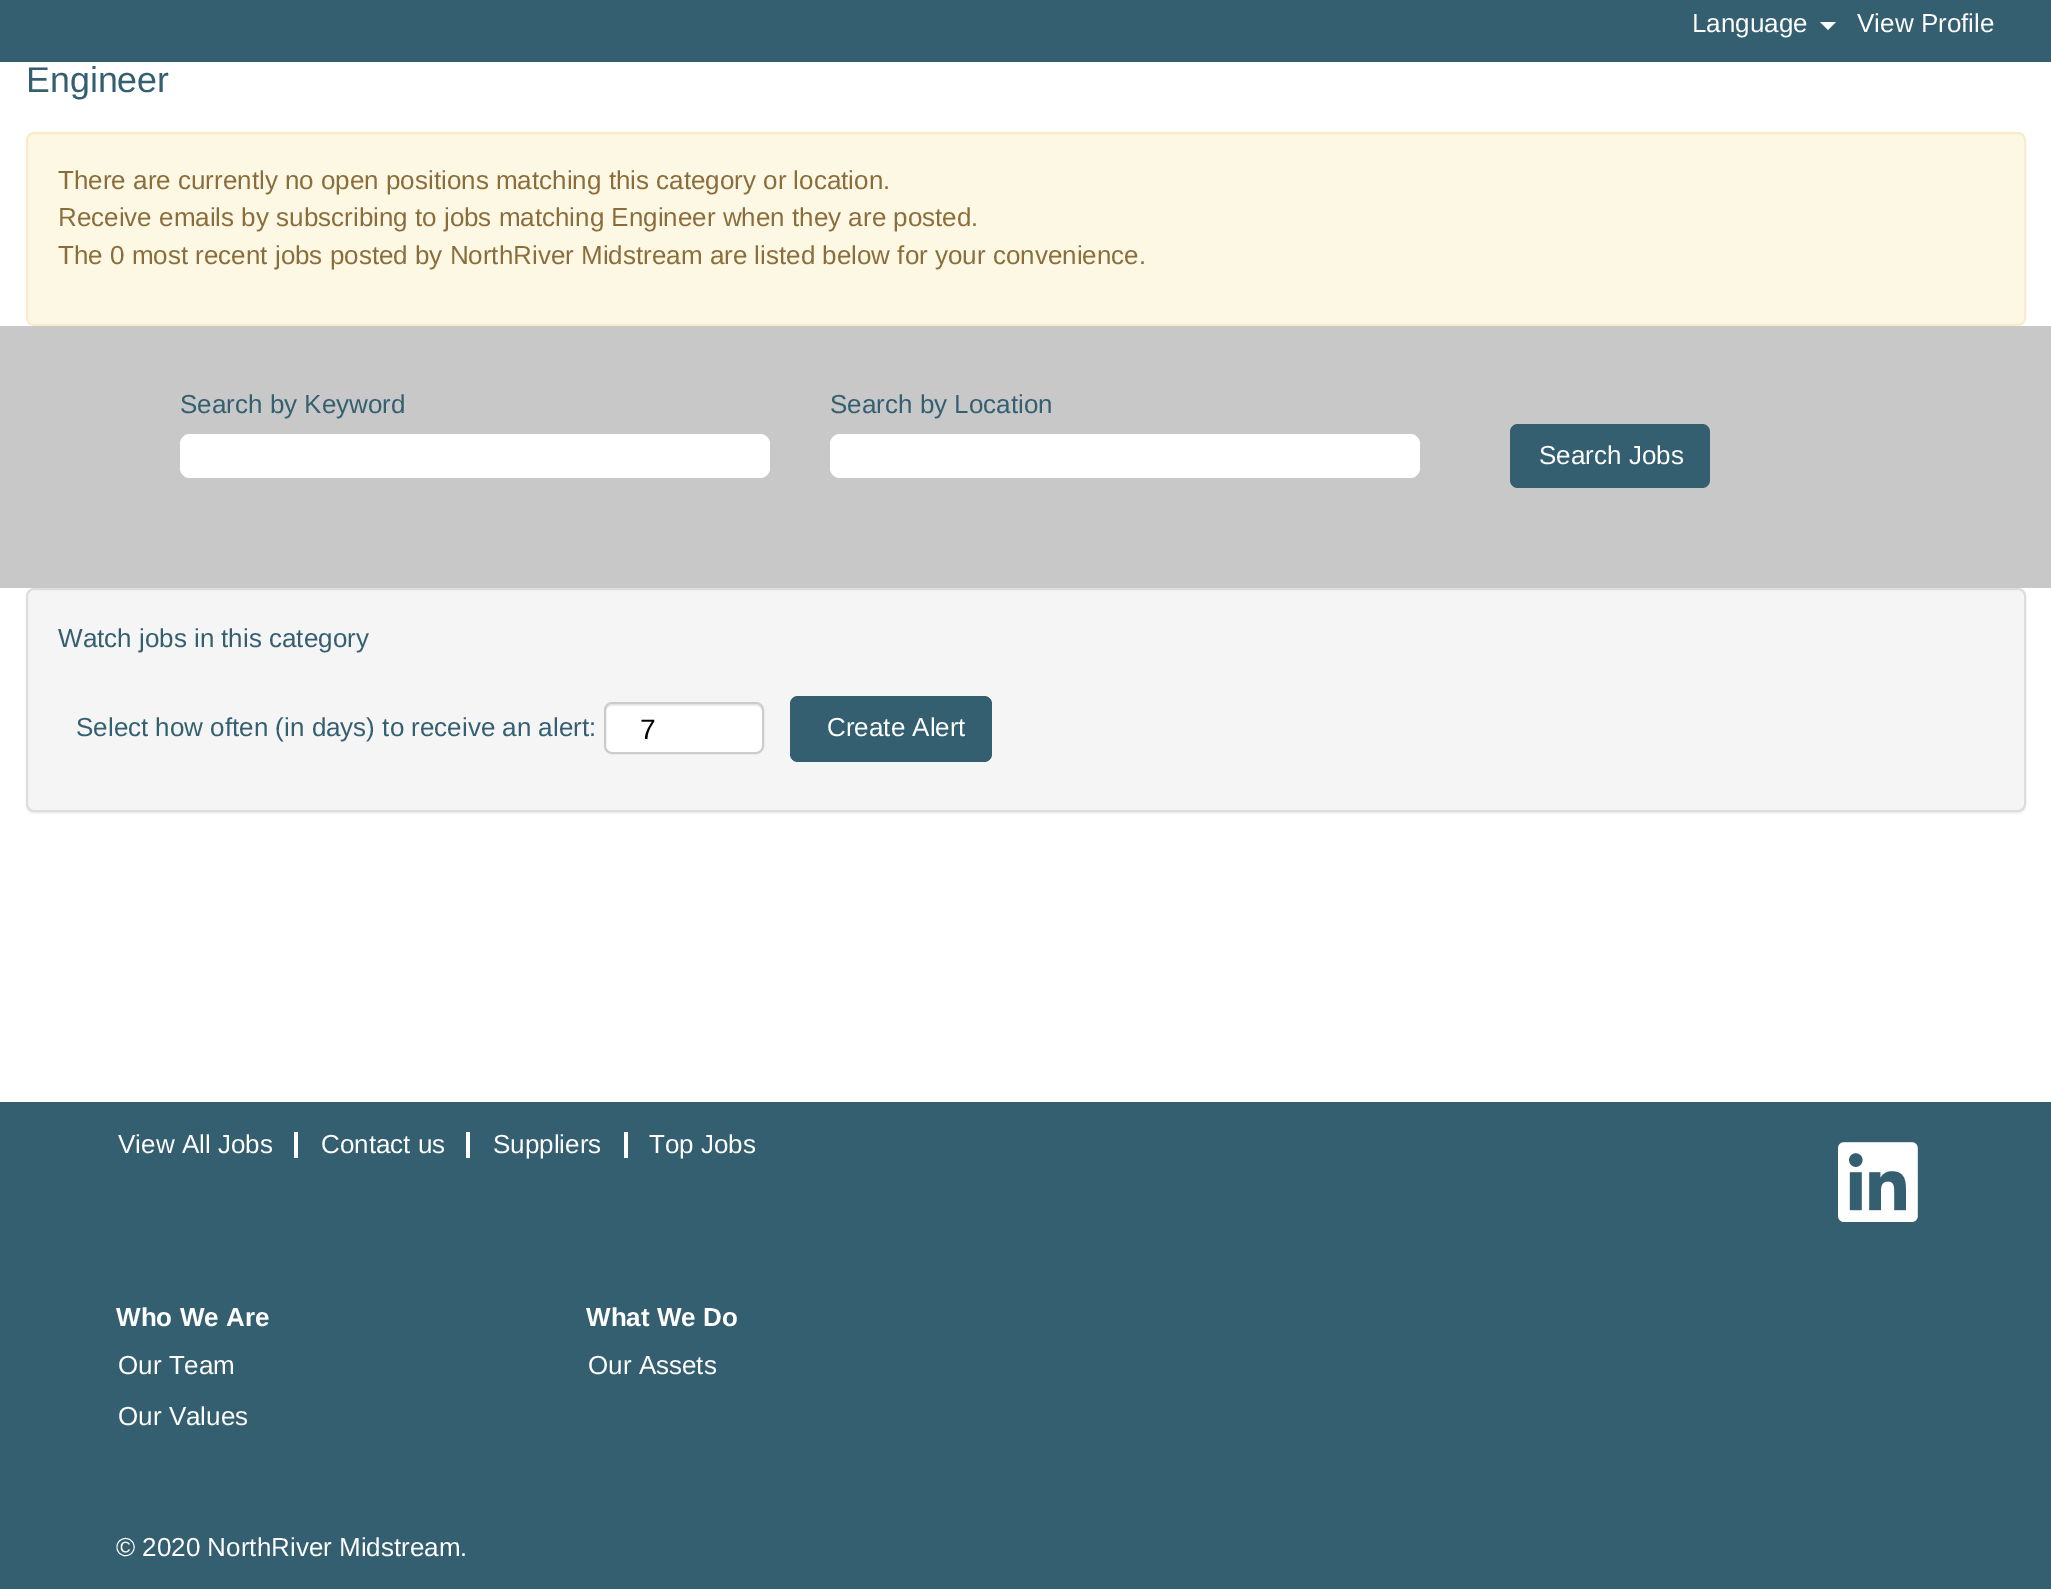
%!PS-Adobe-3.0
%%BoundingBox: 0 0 2051 1589
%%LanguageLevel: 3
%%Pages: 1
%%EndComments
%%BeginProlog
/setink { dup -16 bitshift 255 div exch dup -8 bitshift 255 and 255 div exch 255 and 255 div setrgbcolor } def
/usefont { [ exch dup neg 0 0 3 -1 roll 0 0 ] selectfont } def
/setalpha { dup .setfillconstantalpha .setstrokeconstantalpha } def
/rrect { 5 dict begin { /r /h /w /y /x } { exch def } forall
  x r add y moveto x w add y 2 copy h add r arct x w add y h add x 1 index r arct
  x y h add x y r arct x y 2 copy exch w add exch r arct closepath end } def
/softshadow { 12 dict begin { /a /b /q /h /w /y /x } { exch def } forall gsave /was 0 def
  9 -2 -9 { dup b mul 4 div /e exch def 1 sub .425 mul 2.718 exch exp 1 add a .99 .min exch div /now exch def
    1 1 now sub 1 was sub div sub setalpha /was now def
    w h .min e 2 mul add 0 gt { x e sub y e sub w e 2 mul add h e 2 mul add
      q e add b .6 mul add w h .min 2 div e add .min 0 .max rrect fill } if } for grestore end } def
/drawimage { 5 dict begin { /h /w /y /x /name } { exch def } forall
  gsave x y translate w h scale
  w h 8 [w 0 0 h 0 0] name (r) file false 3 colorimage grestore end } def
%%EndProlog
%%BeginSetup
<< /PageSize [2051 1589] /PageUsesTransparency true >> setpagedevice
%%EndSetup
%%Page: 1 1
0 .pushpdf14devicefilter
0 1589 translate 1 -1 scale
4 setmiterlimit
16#FFFFFF setink
0 0 2051 1589 rectfill
16#345F71 setink
0 0 2051 62 rectfill
/LiberationSans-Regular 26 usefont
16#FFFFFF setink
1692 32 moveto (Language) show
1820 22 moveto 1836 22 lineto 1828 30 lineto closepath fill
1857 32 moveto (View Profile) show
/LiberationSans-Regular 35.75 usefont
16#345F71 setink
26 92 moveto (Engineer) show
16#FCF8E3 setink
27 133 1998 192 7 rrect gsave fill grestore
16#FAEBCC setink
2 setlinewidth
stroke
/LiberationSans-Regular 26 usefont
16#8A6D3B setink
[
    [(There are currently no open positions matching this category or location.) 58 189]
    [(Receive emails by subscribing to jobs matching Engineer when they are posted.) 58 226]
    [(The 0 most recent jobs posted by NorthRiver Midstream are listed below for your convenience.) 58 264]
] { aload pop moveto show } forall
16#C8C8C8 setink
0 326 2051 262 rectfill
16#345F71 setink
180 413 moveto (Search by Keyword) show
16#FFFFFF setink
180 434 590 44 10 rrect fill
16#345F71 setink
830 413 moveto (Search by Location) show
16#FFFFFF setink
830 434 590 44 10 rrect fill
16#345F71 setink
1510 424 200 64 8 rrect fill
16#FFFFFF setink
1539 464 moveto (Search Jobs) show
16#000000 setink
26 590 2000 224 8 1 0.05 softshadow
16#F5F5F5 setink
27 589 1998 222 7 rrect gsave fill grestore
16#DDDDDD setink
stroke
16#345F71 setink
58 647 moveto (Watch jobs in this category) show
76 736 moveto (Select how often \(in days\) to receive an alert:) show
16#FFFFFF setink
604 702 160 52 8 rrect fill
16#ECECEC setink
612 706 moveto 756 706 lineto 759 706 762 709 762 712 curveto 762 710 lineto 762 707 759 704 756 704 curveto 612 704 lineto 609 704 606 707 606 710 curveto 606 712 lineto 606 709 609 706 612 706 curveto closepath fill
16#CCCCCC setink
605 703 158 50 7 rrect stroke
/LiberationSans-Regular 28 usefont
16#000000 setink
640 739 moveto (7) show
16#345F71 setink
790 696 202 66 8 rrect fill
/LiberationSans-Regular 26 usefont
16#FFFFFF setink
827 736 moveto (Create Alert) show
16#345F71 setink
0 1102 2051 487 rectfill
16#FFFFFF setink
294 1132 4 26 rectfill
118 1153 moveto (View All Jobs) show
466 1132 4 26 rectfill
321 1153 moveto (Contact us) show
624 1132 4 26 rectfill
493 1153 moveto (Suppliers) show
649 1153 moveto (Top Jobs) show
(img1.raw) 1838 1142 80 80 drawimage
/LiberationSans-Bold 26 usefont
116 1326 moveto (Who We Are) show
/LiberationSans-Regular 26 usefont
118 1374 moveto (Our Team) show
118 1425 moveto (Our Values) show
/LiberationSans-Bold 26 usefont
586 1326 moveto (What We Do) show
/LiberationSans-Regular 26 usefont
588 1374 moveto (Our Assets) show
116 1556 moveto (© 2020 NorthRiver Midstream.) show
.poppdf14devicefilter showpage
%%EOF
